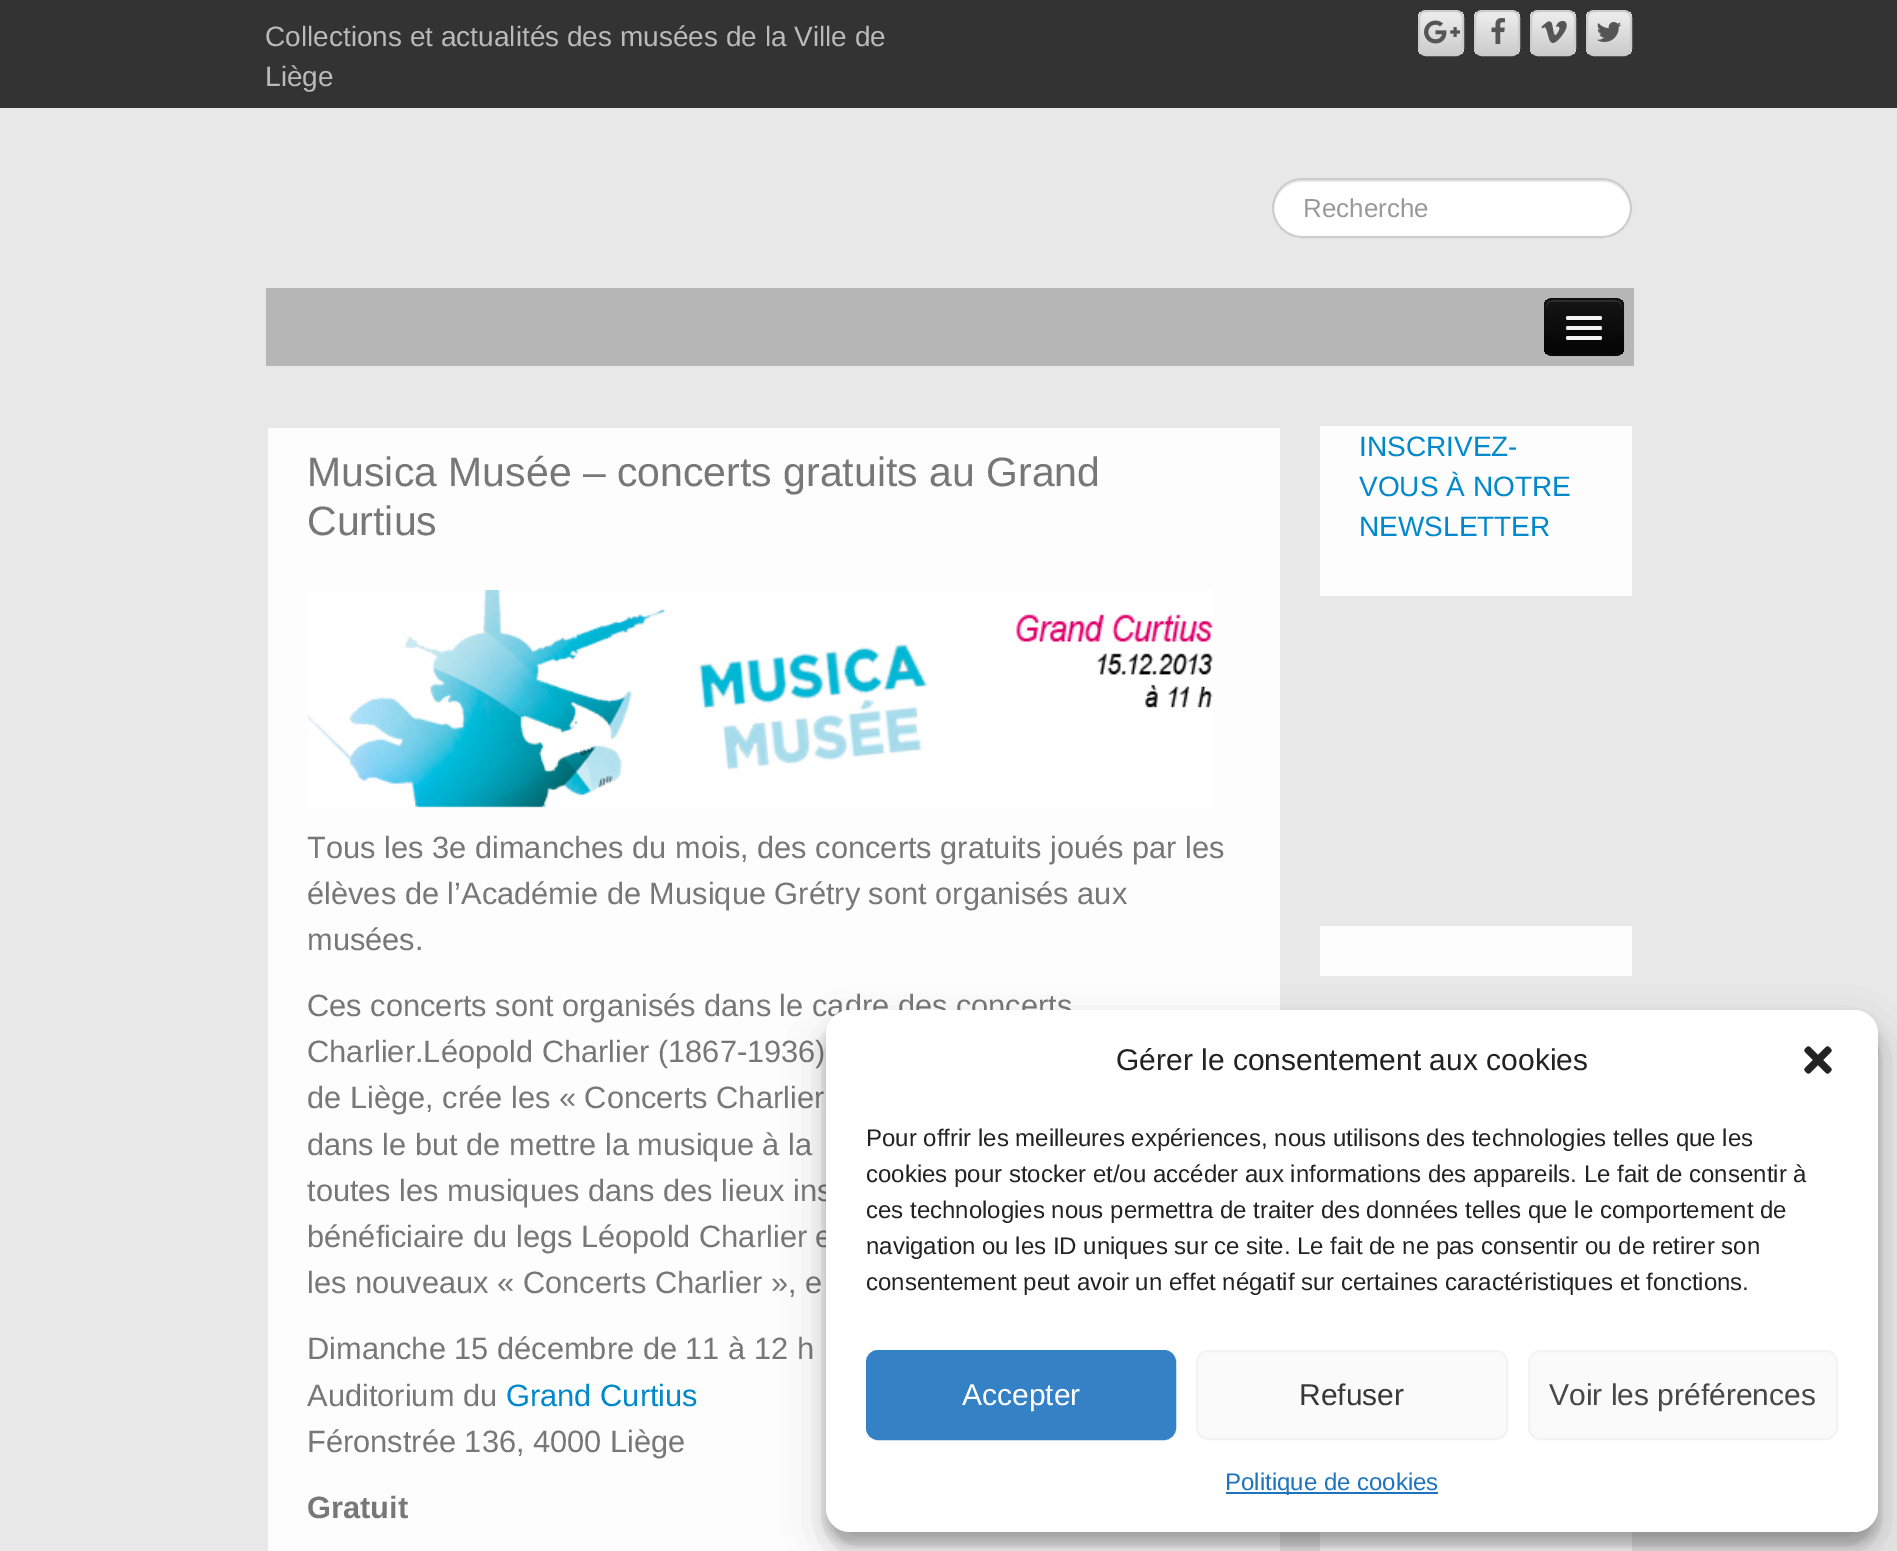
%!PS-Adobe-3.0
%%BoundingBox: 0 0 1897 1551
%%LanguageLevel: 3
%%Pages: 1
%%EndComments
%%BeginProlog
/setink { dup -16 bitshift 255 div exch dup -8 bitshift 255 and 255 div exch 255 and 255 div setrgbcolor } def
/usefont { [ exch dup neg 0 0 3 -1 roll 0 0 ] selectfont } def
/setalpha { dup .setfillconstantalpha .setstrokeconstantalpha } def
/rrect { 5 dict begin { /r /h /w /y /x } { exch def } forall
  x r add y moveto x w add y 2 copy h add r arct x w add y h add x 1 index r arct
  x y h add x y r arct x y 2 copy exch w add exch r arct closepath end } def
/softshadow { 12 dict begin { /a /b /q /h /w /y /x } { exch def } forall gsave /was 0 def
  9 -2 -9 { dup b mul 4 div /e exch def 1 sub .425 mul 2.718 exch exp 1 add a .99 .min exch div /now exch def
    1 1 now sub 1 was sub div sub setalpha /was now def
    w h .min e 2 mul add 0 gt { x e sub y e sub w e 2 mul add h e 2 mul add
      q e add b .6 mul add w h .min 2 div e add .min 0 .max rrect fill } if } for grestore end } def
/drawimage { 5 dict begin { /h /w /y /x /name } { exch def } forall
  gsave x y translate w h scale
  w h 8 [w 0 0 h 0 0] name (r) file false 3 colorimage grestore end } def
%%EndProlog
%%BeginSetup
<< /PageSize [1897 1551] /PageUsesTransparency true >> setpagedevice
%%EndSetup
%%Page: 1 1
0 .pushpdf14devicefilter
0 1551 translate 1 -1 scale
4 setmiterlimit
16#E8E8E8 setink
0 0 1897 1551 rectfill
16#333333 setink
0 0 1897 108 rectfill
/LiberationSans-Regular 28 usefont
16#BABABA setink
265 46 moveto (Collections et actualités des musées de la Ville de) show
265 86 moveto (Liège) show
gsave
1418 10 46 46 8 rrect clip newpath
gsave 1418 12 moveto 1464 12 lineto 1464 54 lineto 1418 54 lineto closepath clip newpath
<< /ShadingType 2 /ColorSpace /DeviceRGB /Coords [1441 12 1441 54] /Extend [true true] /Function << /FunctionType 2 /Domain [0 1] /C0 [0.933 0.933 0.933] /C1 [0.8 0.8 0.8] /N 1 >> >> shfill grestore
grestore
16#CCCCCC setink
2 setlinewidth
1419 11 44 44 7 rrect stroke
(img1.raw) 1424 20 36 24 drawimage
gsave
1474 10 46 46 8 rrect clip newpath
gsave 1474 12 moveto 1520 12 lineto 1520 54 lineto 1474 54 lineto closepath clip newpath
<< /ShadingType 2 /ColorSpace /DeviceRGB /Coords [1497 12 1497 54] /Extend [true true] /Function << /FunctionType 2 /Domain [0 1] /C0 [0.933 0.933 0.933] /C1 [0.8 0.8 0.8] /N 1 >> >> shfill grestore
grestore
1475 11 44 44 7 rrect stroke
(img2.raw) 1491 18 14 26 drawimage
gsave
1530 10 46 46 8 rrect clip newpath
gsave 1530 12 moveto 1576 12 lineto 1576 54 lineto 1530 54 lineto closepath clip newpath
<< /ShadingType 2 /ColorSpace /DeviceRGB /Coords [1553 12 1553 54] /Extend [true true] /Function << /FunctionType 2 /Domain [0 1] /C0 [0.933 0.933 0.933] /C1 [0.8 0.8 0.8] /N 1 >> >> shfill grestore
grestore
1531 11 44 44 7 rrect stroke
(img3.raw) 1541 21 26 22 drawimage
gsave
1586 10 46 46 8 rrect clip newpath
gsave 1586 12 moveto 1632 12 lineto 1632 54 lineto 1586 54 lineto closepath clip newpath
<< /ShadingType 2 /ColorSpace /DeviceRGB /Coords [1609 12 1609 54] /Extend [true true] /Function << /FunctionType 2 /Domain [0 1] /C0 [0.933 0.933 0.933] /C1 [0.8 0.8 0.8] /N 1 >> >> shfill grestore
grestore
1587 11 44 44 7 rrect stroke
(img4.raw) 1597 22 25 20 drawimage
16#FFFFFF setink
1272 178 360 60 30 rrect fill
16#ECECEC setink
1302 182 moveto 1602 182 lineto 1617 182 1629 194 1630 209 curveto 1630 208 lineto 1630 193 1617 180 1602 180 curveto 1302 180 lineto 1287 180 1274 193 1274 208 curveto 1274 209 lineto 1275 194 1287 182 1302 182 curveto closepath fill
16#CCCCCC setink
1273 179 358 58 29 rrect stroke
/LiberationSans-Regular 26 usefont
16#999999 setink
1303 217 moveto (Recherche) show
16#B6B6B6 setink
266 288 1368 78 rectfill
16#BBBBBB setink
1544 348 moveto 1544 360 1553 358 1563 358 curveto 1605 358 lineto 1615 358 1624 360 1624 348 curveto 1624 352 1620 356 1616 356 curveto 1552 356 lineto 1548 356 1544 352 1544 348 curveto closepath fill
16#0E0E0E setink
1544 298 80 58 8 rrect fill
gsave
1544 298 80 58 8 rrect clip newpath
gsave 1544 300 moveto 1624 300 lineto 1624 354 lineto 1544 354 lineto closepath clip newpath
<< /ShadingType 2 /ColorSpace /DeviceRGB /Coords [1584 300 1584 354] /Extend [true true] /Function << /FunctionType 2 /Domain [0 1] /C0 [0.082 0.082 0.082] /C1 [0.016 0.016 0.016] /N 1 >> >> shfill grestore
grestore
16#2C2C2C setink
1552 302 moveto 1616 302 lineto 1619 302 1622 305 1622 308 curveto 1622 298 1614 300 1605 300 curveto 1563 300 lineto 1554 300 1546 298 1546 308 curveto 1546 305 1549 302 1552 302 curveto closepath fill
0.25 setalpha
16#000000 setink
1621 353 moveto 1619.5 354.5 1618 355 1616 355 curveto 1552 355 lineto 1550 355 1548.5 354.5 1547 353 curveto stroke
0.1 setalpha
1547 353 moveto 1545.5 351.5 1545 350 1545 348 curveto 1545 306 lineto 1545 304 1545.5 302.5 1547 301 curveto 1548.5 299.5 1550 299 1552 299 curveto 1616 299 lineto 1618 299 1619.5 299.5 1621 301 curveto 1622.5 302.5 1623 304 1623 306 curveto 1623 348 lineto 1623 350 1622.5 351.5 1621 353 curveto stroke
1 setalpha
16#0B0B0B setink
1566.5 319 moveto 1564 323 1573 322 1573.5 322 curveto 1594.5 322 lineto 1595 322 1604 323 1601.5 319 curveto 1601.5 319.5 1600.5 320 1600 320 curveto 1568 320 lineto 1567.5 320 1566.5 319.5 1566.5 319 curveto closepath fill
16#F5F5F5 setink
1566 316 36 4 2 rrect fill
16#080808 setink
1566.5 329 moveto 1564 333 1573 332 1573.5 332 curveto 1594.5 332 lineto 1595 332 1604 333 1601.5 329 curveto 1601.5 329.5 1600.5 330 1600 330 curveto 1568 330 lineto 1567.5 330 1566.5 329.5 1566.5 329 curveto closepath fill
16#F5F5F5 setink
1566 326 36 4 2 rrect fill
1566 336 36 4 2 rrect fill
16#FDFDFD setink
268 428 1012 1123 rectfill
/LiberationSans-Regular 41 usefont
16#777777 setink
307 486 moveto (Musica Musée – concerts gratuits au Grand) show
307 535 moveto (Curtius) show
(img5.raw) 308 590 905 218 drawimage
/LiberationSans-Regular 30.8 usefont
[
    [(Tous les 3e dimanches du mois, des concerts gratuits joués par les) 307 858]
    [(élèves de l’Académie de Musique Grétry sont organisés aux) 307 904]
    [(musées.) 307 950]
    [(Ces concerts sont organisés dans le cadre des concerts) 307 1016]
    [(Charlier.Léopold Charlier \(1867-1936\)) 307 1062]
    [(de Liège, crée les « Concerts Charlier) 307 1108]
    [(dans le but de mettre la musique à la) 307 1155]
    [(toutes les musiques dans des lieux ins) 307 1201]
    [(bénéficiaire du legs Léopold Charlier e) 307 1247]
    [(les nouveaux « Concerts Charlier », e) 307 1293]
    [(Dimanche 15 décembre de 11 à 12 h) 307 1359]
    [(Auditorium du) 307 1406]
] { aload pop moveto show } forall
16#0088CC setink
506 1406 moveto (Grand Curtius) show
16#777777 setink
307 1452 moveto (Féronstrée 136, 4000 Liège) show
/LiberationSans-Bold 30.8 usefont
307 1518 moveto (Gratuit) show
16#FDFDFD setink
1320 426 312 170 rectfill
/LiberationSans-Regular 28 usefont
16#0088CC setink
[
    [(INSCRIVEZ-) 1359 456]
    [(VOUS À NOTRE) 1359 496]
    [(NEWSLETTER) 1359 536]
] { aload pop moveto show } forall
16#FDFDFD setink
1320 926 312 50 rectfill
1320 1532 312 19 rectfill
16#000000 setink
826 1022 1052 522 24 6 0.23 softshadow
826 1030 1052 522 24 20 0.19 softshadow
16#FFFFFF setink
826 1010 1052 522 24 rrect fill
/LiberationSans-Regular 30 usefont
16#222222 setink
1116 1070 moveto (Gérer le consentement aux cookies) show
(img6.raw) 1804 1046 28 28 drawimage
/LiberationSans-Regular 24 usefont
[
    [(Pour offrir les meilleures expériences, nous utilisons des technologies telles que les) 866 1146]
    [(cookies pour stocker et/ou accéder aux informations des appareils. Le fait de consentir à) 866 1182]
    [(ces technologies nous permettra de traiter des données telles que le comportement de) 866 1218]
    [(navigation ou les ID uniques sur ce site. Le fait de ne pas consentir ou de retirer son) 866 1254]
    [(consentement peut avoir un effet négatif sur certaines caractéristiques et fonctions.) 866 1290]
] { aload pop moveto show } forall
16#3581C5 setink
867 1351 308 88 11 rrect gsave fill grestore
stroke
/LiberationSans-Regular 30 usefont
16#FFFFFF setink
962 1405 moveto (Accepter) show
16#FAFAFA setink
1197 1351 310 88 11 rrect gsave fill grestore
16#F3F3F3 setink
stroke
16#383838 setink
1299 1405 moveto (Refuser) show
16#FAFAFA setink
1529 1351 308 88 11 rrect gsave fill grestore
16#F3F3F3 setink
stroke
16#474747 setink
1549 1405 moveto (Voir les préférences) show
16#1E73BE setink
1226 1492 212 2 rectfill
/LiberationSans-Regular 24 usefont
1225 1490 moveto (Politique de cookies) show
.poppdf14devicefilter showpage
%%EOF
